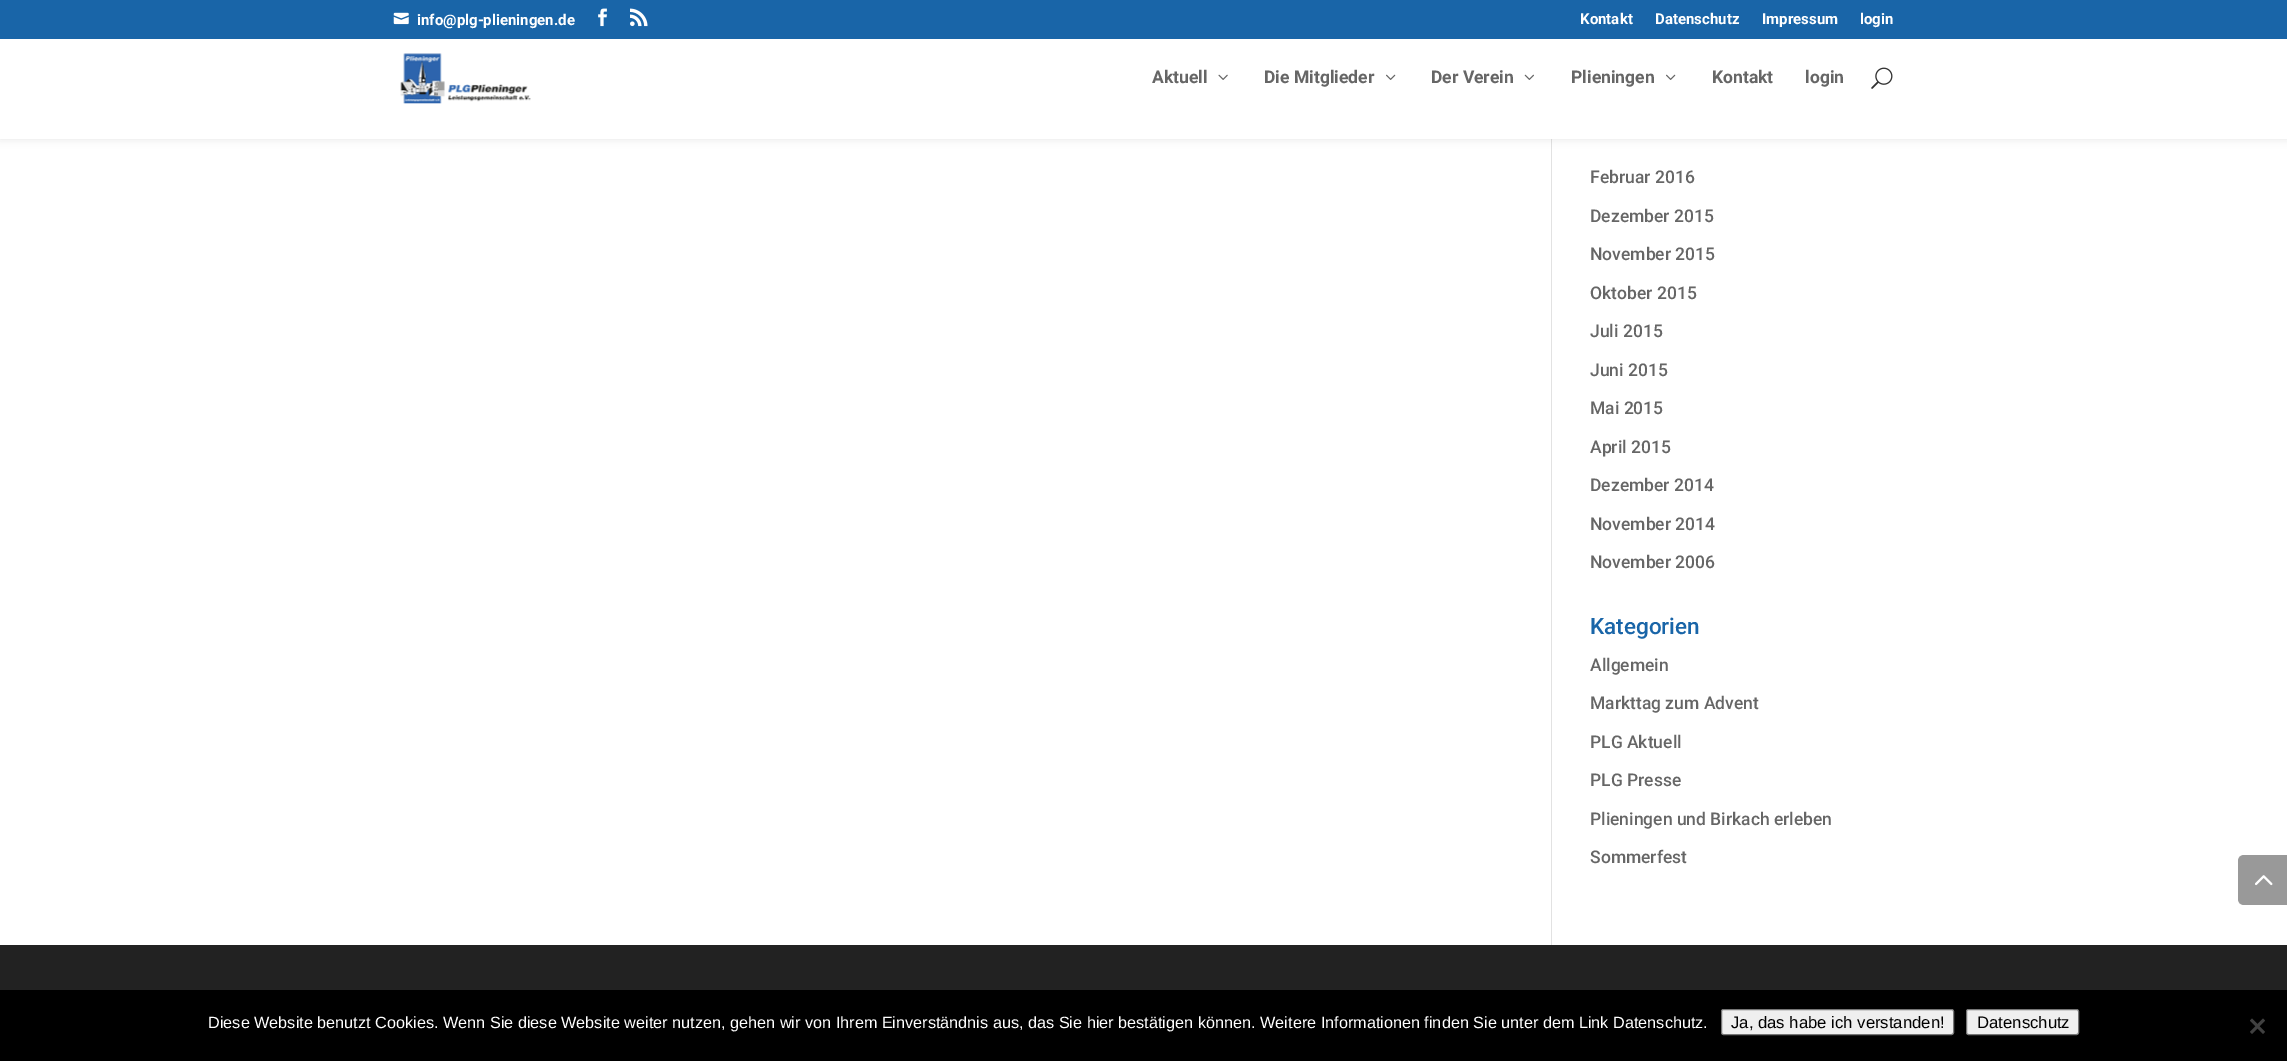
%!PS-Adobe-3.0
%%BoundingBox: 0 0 2287 1061
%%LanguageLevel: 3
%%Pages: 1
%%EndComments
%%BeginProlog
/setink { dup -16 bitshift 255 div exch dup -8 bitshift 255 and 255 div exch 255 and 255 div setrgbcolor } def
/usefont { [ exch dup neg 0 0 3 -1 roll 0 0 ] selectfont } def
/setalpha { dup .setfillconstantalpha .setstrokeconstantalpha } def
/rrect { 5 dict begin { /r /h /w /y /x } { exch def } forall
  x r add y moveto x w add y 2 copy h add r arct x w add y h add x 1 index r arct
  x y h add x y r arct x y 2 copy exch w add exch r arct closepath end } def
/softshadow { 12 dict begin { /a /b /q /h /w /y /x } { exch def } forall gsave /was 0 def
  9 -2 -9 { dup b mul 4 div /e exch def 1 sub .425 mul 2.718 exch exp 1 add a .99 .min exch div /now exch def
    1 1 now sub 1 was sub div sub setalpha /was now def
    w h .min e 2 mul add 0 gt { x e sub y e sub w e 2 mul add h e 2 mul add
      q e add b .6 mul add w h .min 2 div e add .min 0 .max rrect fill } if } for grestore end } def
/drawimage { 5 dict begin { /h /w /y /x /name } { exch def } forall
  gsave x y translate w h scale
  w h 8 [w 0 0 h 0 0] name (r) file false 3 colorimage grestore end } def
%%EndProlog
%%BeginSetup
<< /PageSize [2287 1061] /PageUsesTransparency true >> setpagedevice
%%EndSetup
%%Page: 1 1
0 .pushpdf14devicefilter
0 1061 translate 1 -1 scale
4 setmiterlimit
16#FFFFFF setink
0 0 2287 1061 rectfill
16#E2E2E2 setink
1551 139 1 806 rectfill
16#000000 setink
0 39 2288 100 0 4.5 0.1 softshadow
16#1965A8 setink
0 0 2287 39 rectfill
(img1.raw) 393 12 16 13 drawimage
/Roboto-Bold 15 usefont
16#FFFFFF setink
417 25 moveto (info@plg-plieningen.de) show
(img2.raw) 598 8 9 19 drawimage
(img3.raw) 630 8 18 19 drawimage
[
    [(Kontakt) 1580 24]
    [(Datenschutz) 1655 24]
    [(Impressum) 1762 24]
    [(login) 1860 24]
] { aload pop moveto show } forall
0 39 2287 100 rectfill
(img4.raw) 400 53 131 51 drawimage
/Roboto-Bold 17.5 usefont
16#666666 setink
1152 83 moveto (Aktuell) show
(img5.raw) 1218 74 10 6 drawimage
1264 83 moveto (Die Mitglieder) show
(img6.raw) 1386 74 10 6 drawimage
1431 83 moveto (Der Verein) show
(img7.raw) 1524 74 10 6 drawimage
1571 83 moveto (Plieningen) show
(img6.raw) 1666 74 10 6 drawimage
1712 83 moveto (Kontakt) show
1805 83 moveto (login) show
(img8.raw) 1871 67 22 22 drawimage
/Roboto-Medium 17.5 usefont
[
    [(Februar 2016) 1590 183]
    [(Dezember 2015) 1590 222]
    [(November 2015) 1590 260]
    [(Oktober 2015) 1590 299]
    [(Juli 2015) 1590 337]
    [(Juni 2015) 1590 376]
    [(Mai 2015) 1590 414]
    [(April 2015) 1590 453]
    [(Dezember 2014) 1590 491]
    [(November 2014) 1590 530]
    [(November 2006) 1590 568]
] { aload pop moveto show } forall
/Roboto-Medium 22.5 usefont
16#1965A8 setink
1590 634 moveto (Kategorien) show
/Roboto-Medium 17.5 usefont
16#666666 setink
[
    [(Allgemein) 1590 671]
    [(Markttag zum Advent) 1590 709]
    [(PLG Aktuell) 1590 748]
    [(PLG Presse) 1590 786]
    [(Plieningen und Birkach erleben) 1590 825]
    [(Sommerfest) 1590 863]
] { aload pop moveto show } forall
16#999999 setink
2244 855 moveto 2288 855 lineto 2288 905 lineto 2244 905 lineto 2240.5 905 2238 902.5 2238 899 curveto 2238 861 lineto 2238 857.5 2240.5 855 2244 855 curveto closepath fill
(img9.raw) 2255 875 18 11 drawimage
16#222222 setink
0 945 2287 45 rectfill
16#000000 setink
0 990 2287 71 rectfill
/LiberationSans-Regular 16.25 usefont
16#FFFFFF setink
208 1028 moveto (Diese Website benutzt Cookies. Wenn Sie diese Website weiter nutzen, gehen wir von Ihrem Einverständnis aus, das Sie hier bestätigen können. Weitere Informationen finden Sie unter dem Link Datenschutz.) show
16#EFEFEF setink
1721.5 1009.5 232 25 2 rrect gsave fill grestore
16#767676 setink
stroke
/LiberationSans-Regular 16.7 usefont
16#000000 setink
1731 1028 moveto (Ja, das habe ich verstanden!) show
16#EFEFEF setink
1966.5 1009.5 112 25 2 rrect gsave fill grestore
16#767676 setink
stroke
16#000000 setink
1977 1028 moveto (Datenschutz) show
16#404040 setink
2263 1018.5 moveto 2265 1020.5 lineto 2252 1034 lineto 2250 1032 lineto closepath fill
2250 1020.5 moveto 2252 1018.5 lineto 2265 1032 lineto 2263 1034 lineto closepath fill
.poppdf14devicefilter showpage
%%EOF
